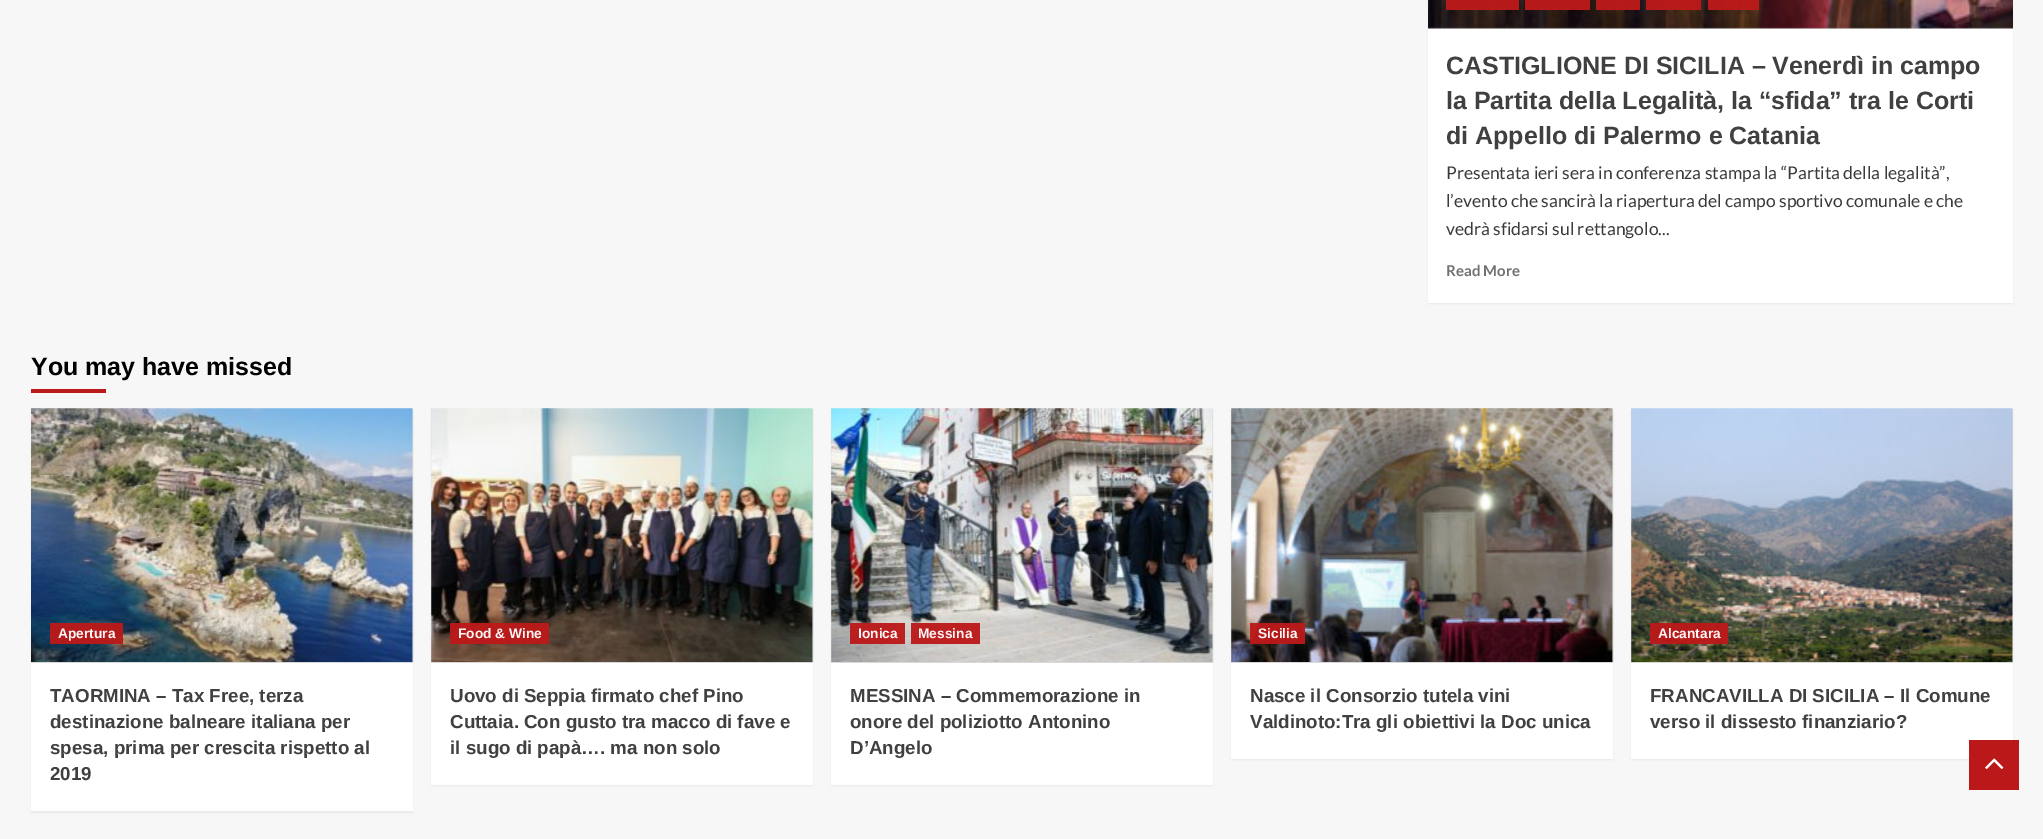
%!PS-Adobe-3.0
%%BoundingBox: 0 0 2043 839
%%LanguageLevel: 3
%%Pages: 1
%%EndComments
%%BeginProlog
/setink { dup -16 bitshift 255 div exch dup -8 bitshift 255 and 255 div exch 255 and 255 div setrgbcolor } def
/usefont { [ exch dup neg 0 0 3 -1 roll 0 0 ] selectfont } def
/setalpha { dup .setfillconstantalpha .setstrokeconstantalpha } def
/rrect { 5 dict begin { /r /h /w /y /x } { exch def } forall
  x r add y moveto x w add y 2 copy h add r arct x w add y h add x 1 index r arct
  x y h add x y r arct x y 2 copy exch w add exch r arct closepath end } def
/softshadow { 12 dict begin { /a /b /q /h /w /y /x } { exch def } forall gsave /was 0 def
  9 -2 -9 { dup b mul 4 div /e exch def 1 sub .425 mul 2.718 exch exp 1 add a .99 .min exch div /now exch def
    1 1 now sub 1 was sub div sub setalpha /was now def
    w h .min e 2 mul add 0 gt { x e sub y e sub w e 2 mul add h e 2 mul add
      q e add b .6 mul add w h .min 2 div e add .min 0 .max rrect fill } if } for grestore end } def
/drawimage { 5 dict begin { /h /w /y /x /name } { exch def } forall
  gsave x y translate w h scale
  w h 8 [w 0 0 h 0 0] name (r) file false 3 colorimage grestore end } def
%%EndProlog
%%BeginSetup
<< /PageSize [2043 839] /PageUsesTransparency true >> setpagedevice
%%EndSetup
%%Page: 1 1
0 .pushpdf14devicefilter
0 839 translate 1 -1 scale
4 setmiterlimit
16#F7F7F7 setink
0 0 2043 839 rectfill
16#000000 setink
1428 -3 585 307 0 1 0.05 softshadow
16#FFFFFF setink
1428 29 585 274 rectfill
16#D8D8D8 setink
1428 27 585 2 rectfill
(img1.raw) 1428 0 585 29 drawimage
0.96 setalpha
[
    [1446 0 73 10 16#BB1919]
    [1525 0 65 10 16#BB1919]
    [1596 0 44 10 16#BB1919]
    [1646 0 55 10 16#BB1919]
    [1708 0 51 10 16#BB1919]
] { aload pop setink rectfill } forall
/LiberationSans-Bold 25 usefont
1 setalpha
16#404040 setink
[
    [(CASTIGLIONE DI SICILIA – Venerdì in campo) 1446 74]
    [(la Partita della Legalità, la “sfida” tra le Corti) 1446 109]
    [(di Appello di Palermo e Catania) 1446 144]
] { aload pop moveto show } forall
/Lato-Regular 17.5 usefont
16#3A3A3A setink
[
    [(Presentata ieri sera in conferenza stampa la “Partita della legalità”,) 1446 179]
    [(l’evento che sancirà la riapertura del campo sportivo comunale e che) 1446 207]
    [(vedrà sfidarsi sul rettangolo...) 1446 235]
] { aload pop moveto show } forall
/Lato-Bold 15 usefont
16#707070 setink
1446 276 moveto (Read More) show
/LiberationSans-Bold 25 usefont
16#000000 setink
31 375 moveto (You may have missed) show
16#BB1919 setink
31 389 75 4 rectfill
16#000000 setink
31 410 382 403 0 1 0.05 softshadow
16#FFFFFF setink
31 663 382 148 rectfill
16#D8D8D8 setink
31 409 382 254 rectfill
(img2.raw) 31 408 383 254 drawimage
0.96 setalpha
16#BB1919 setink
50 623 73 21 rectfill
/LiberationSans-Bold 13.75 usefont
1 setalpha
16#FCF6F6 setink
58 638 moveto (Apertura) show
/LiberationSans-Bold 18.75 usefont
16#404040 setink
[
    [(TAORMINA – Tax Free, terza) 50 702]
    [(destinazione balneare italiana per) 50 728]
    [(spesa, prima per crescita rispetto al) 50 754]
    [(2019) 50 780]
] { aload pop moveto show } forall
16#000000 setink
431 410 382 376 0 1 0.05 softshadow
16#FFFFFF setink
431 663 382 122 rectfill
16#D8D8D8 setink
431 409 382 254 rectfill
(img3.raw) 431 408 383 254 drawimage
0.96 setalpha
16#BB1919 setink
450 623 99 21 rectfill
/LiberationSans-Bold 13.75 usefont
1 setalpha
16#FCF6F6 setink
458 638 moveto (Food & Wine) show
/LiberationSans-Bold 18.75 usefont
16#404040 setink
[
    [(Uovo di Seppia firmato chef Pino) 450 702]
    [(Cuttaia. Con gusto tra macco di fave e) 450 728]
    [(il sugo di papà…. ma non solo) 450 754]
] { aload pop moveto show } forall
16#000000 setink
831 410 382 376 0 1 0.05 softshadow
16#FFFFFF setink
831 663 382 122 rectfill
16#D8D8D8 setink
831 409 382 254 rectfill
(img4.raw) 831 408 383 254 drawimage
0.96 setalpha
16#BB1919 setink
850 623 55 21 rectfill
/LiberationSans-Bold 13.75 usefont
1 setalpha
16#FCF6F6 setink
858 638 moveto (Ionica) show
0.96 setalpha
16#BB1919 setink
911 623 69 21 rectfill
1 setalpha
16#FCF6F6 setink
918 638 moveto (Messina) show
/LiberationSans-Bold 18.75 usefont
16#404040 setink
[
    [(MESSINA – Commemorazione in) 850 702]
    [(onore del poliziotto Antonino) 850 728]
    [(D’Angelo) 850 754]
] { aload pop moveto show } forall
16#000000 setink
1231 410 382 350 0 1 0.05 softshadow
16#FFFFFF setink
1231 663 382 96 rectfill
16#D8D8D8 setink
1231 409 382 254 rectfill
(img5.raw) 1231 408 383 254 drawimage
0.96 setalpha
16#BB1919 setink
1250 623 55 21 rectfill
/LiberationSans-Bold 13.75 usefont
1 setalpha
16#FCF6F6 setink
1258 638 moveto (Sicilia) show
/LiberationSans-Bold 18.75 usefont
16#404040 setink
1250 702 moveto (Nasce il Consorzio tutela vini) show
1250 728 moveto (Valdinoto:Tra gli obiettivi la Doc unica) show
16#000000 setink
1631 410 382 350 0 1 0.05 softshadow
16#FFFFFF setink
1631 663 382 96 rectfill
16#D8D8D8 setink
1631 409 382 254 rectfill
(img6.raw) 1631 408 382 254 drawimage
0.96 setalpha
16#BB1919 setink
1650 623 78 21 rectfill
/LiberationSans-Bold 13.75 usefont
1 setalpha
16#FCF6F6 setink
1658 638 moveto (Alcantara) show
/LiberationSans-Bold 18.75 usefont
16#404040 setink
1650 702 moveto (FRANCAVILLA DI SICILIA – Il Comune) show
1650 728 moveto (verso il dissesto finanziario?) show
16#BB1919 setink
1969 740 50 50 rectfill
(img7.raw) 1985 758 19 11 drawimage
.poppdf14devicefilter showpage
%%EOF
